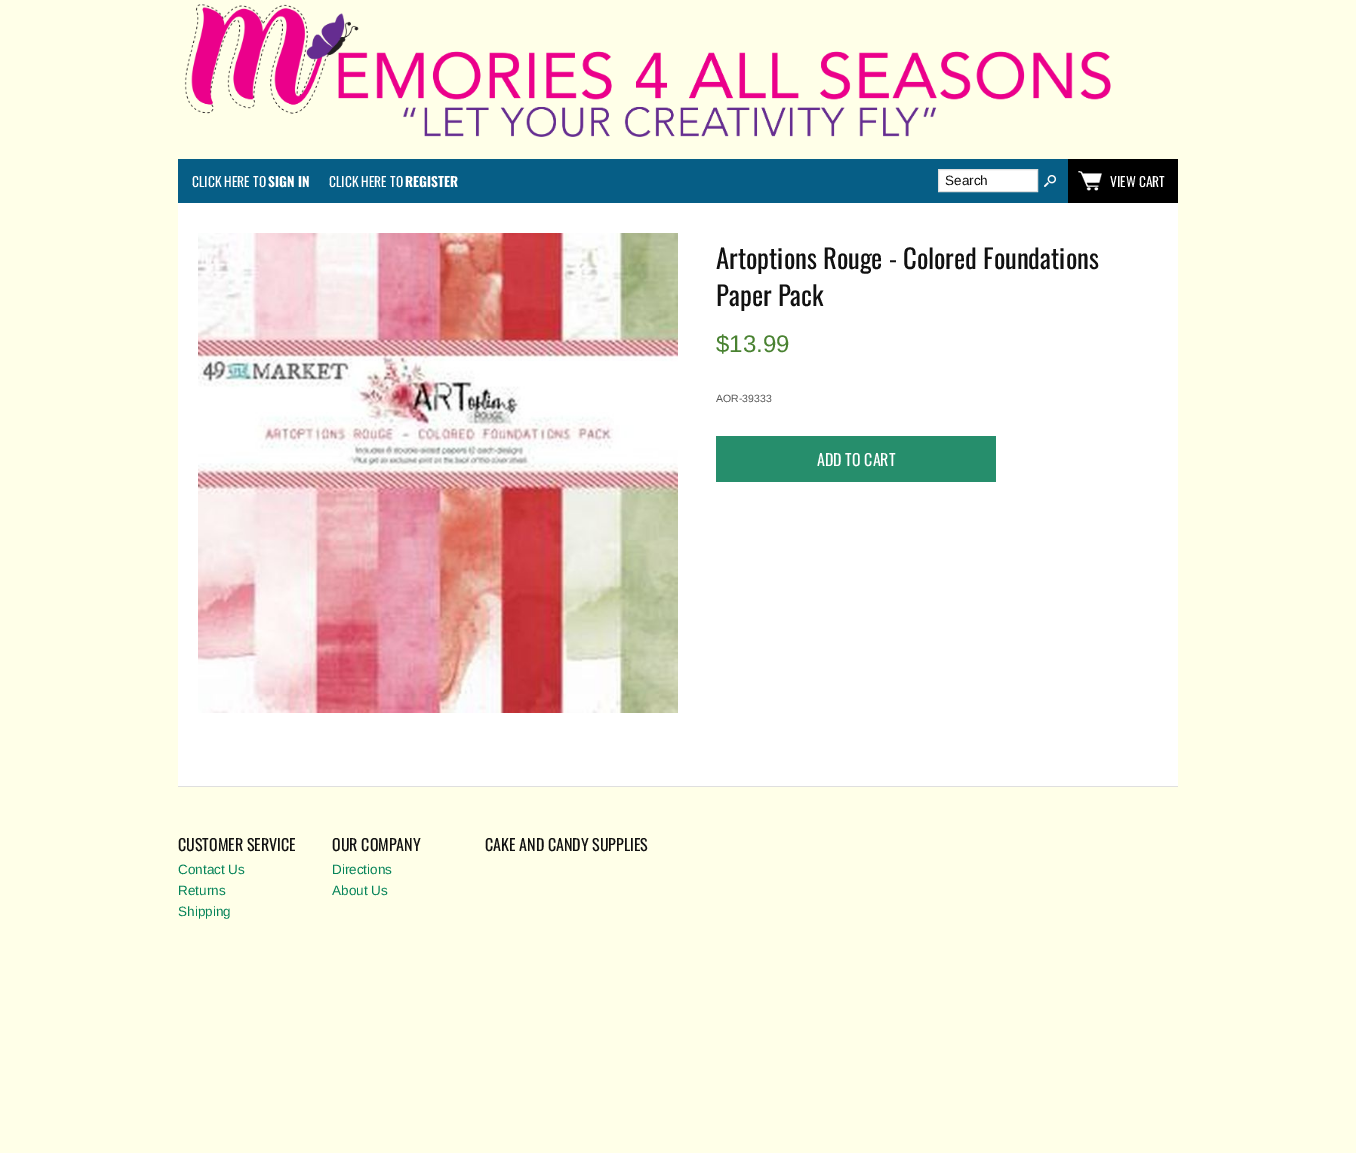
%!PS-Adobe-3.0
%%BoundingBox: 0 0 1356 1153
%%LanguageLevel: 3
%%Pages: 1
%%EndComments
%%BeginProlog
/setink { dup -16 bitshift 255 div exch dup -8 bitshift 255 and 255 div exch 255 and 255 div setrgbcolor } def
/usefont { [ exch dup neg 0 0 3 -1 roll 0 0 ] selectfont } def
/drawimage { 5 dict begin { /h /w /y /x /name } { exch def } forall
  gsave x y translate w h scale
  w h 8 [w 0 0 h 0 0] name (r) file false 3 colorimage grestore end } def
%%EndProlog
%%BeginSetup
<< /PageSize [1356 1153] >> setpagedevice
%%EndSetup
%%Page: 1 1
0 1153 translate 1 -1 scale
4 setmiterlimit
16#FFFFE8 setink
0 0 1356 1153 rectfill
(img1.raw) 184 4 927 133 drawimage
16#065E86 setink
178 159 890 44 rectfill
/Oswald-Regular 13.5 usefont
16#FFFFFF setink
192 187 moveto (CLICK HERE TO) show
/Oswald-Bold 13.5 usefont
268 187 moveto (SIGN IN) show
/Oswald-Regular 13.5 usefont
329 187 moveto (CLICK HERE TO) show
/Oswald-Bold 13.5 usefont
405 187 moveto (REGISTER) show
938.5 169.5 moveto 1037.5 169.5 lineto 1037.5 191.5 lineto 938.5 191.5 lineto closepath gsave fill grestore
16#DFDFDF setink
stroke
/LiberationSans-Regular 13.5 usefont
16#111111 setink
945 185 moveto (Search) show
(img2.raw) 1044 175 12 12 drawimage
16#000000 setink
1068 159 110 44 rectfill
(img3.raw) 1078 171 24 20 drawimage
/Oswald-Regular 13.5 usefont
16#FFFFFF setink
1110 187 moveto (VIEW CART) show
178 203 1000 583 rectfill
(img4.raw) 198 233 480 480 drawimage
/Oswald-Regular 26.7 usefont
16#111111 setink
716 269 moveto (Artoptions Rouge - Colored Foundations) show
716 306 moveto (Paper Pack) show
/LiberationSans-Regular 24 usefont
16#498231 setink
716 352 moveto ($13.99) show
/LiberationSans-Regular 10.5 usefont
16#585858 setink
716 402 moveto (AOR-39333) show
16#268E6C setink
716 436 280 46 rectfill
/Oswald-Regular 16 usefont
16#FFFFFF setink
817 466 moveto (ADD TO CART) show
16#DFDFDF setink
178 786 1000 1 rectfill
16#111111 setink
178 851 moveto (CUSTOMER SERVICE) show
/LiberationSans-Regular 13.5 usefont
16#06845A setink
[
    [(Contact Us) 178 874]
    [(Returns) 178 895]
    [(Shipping) 178 916]
] { aload pop moveto show } forall
/Oswald-Regular 16 usefont
16#111111 setink
332 851 moveto (OUR COMPANY) show
/LiberationSans-Regular 13.5 usefont
16#06845A setink
332 874 moveto (Directions) show
332 895 moveto (About Us) show
/Oswald-Regular 16 usefont
16#111111 setink
485 851 moveto (CAKE AND CANDY SUPPLIES) show
showpage
%%EOF
